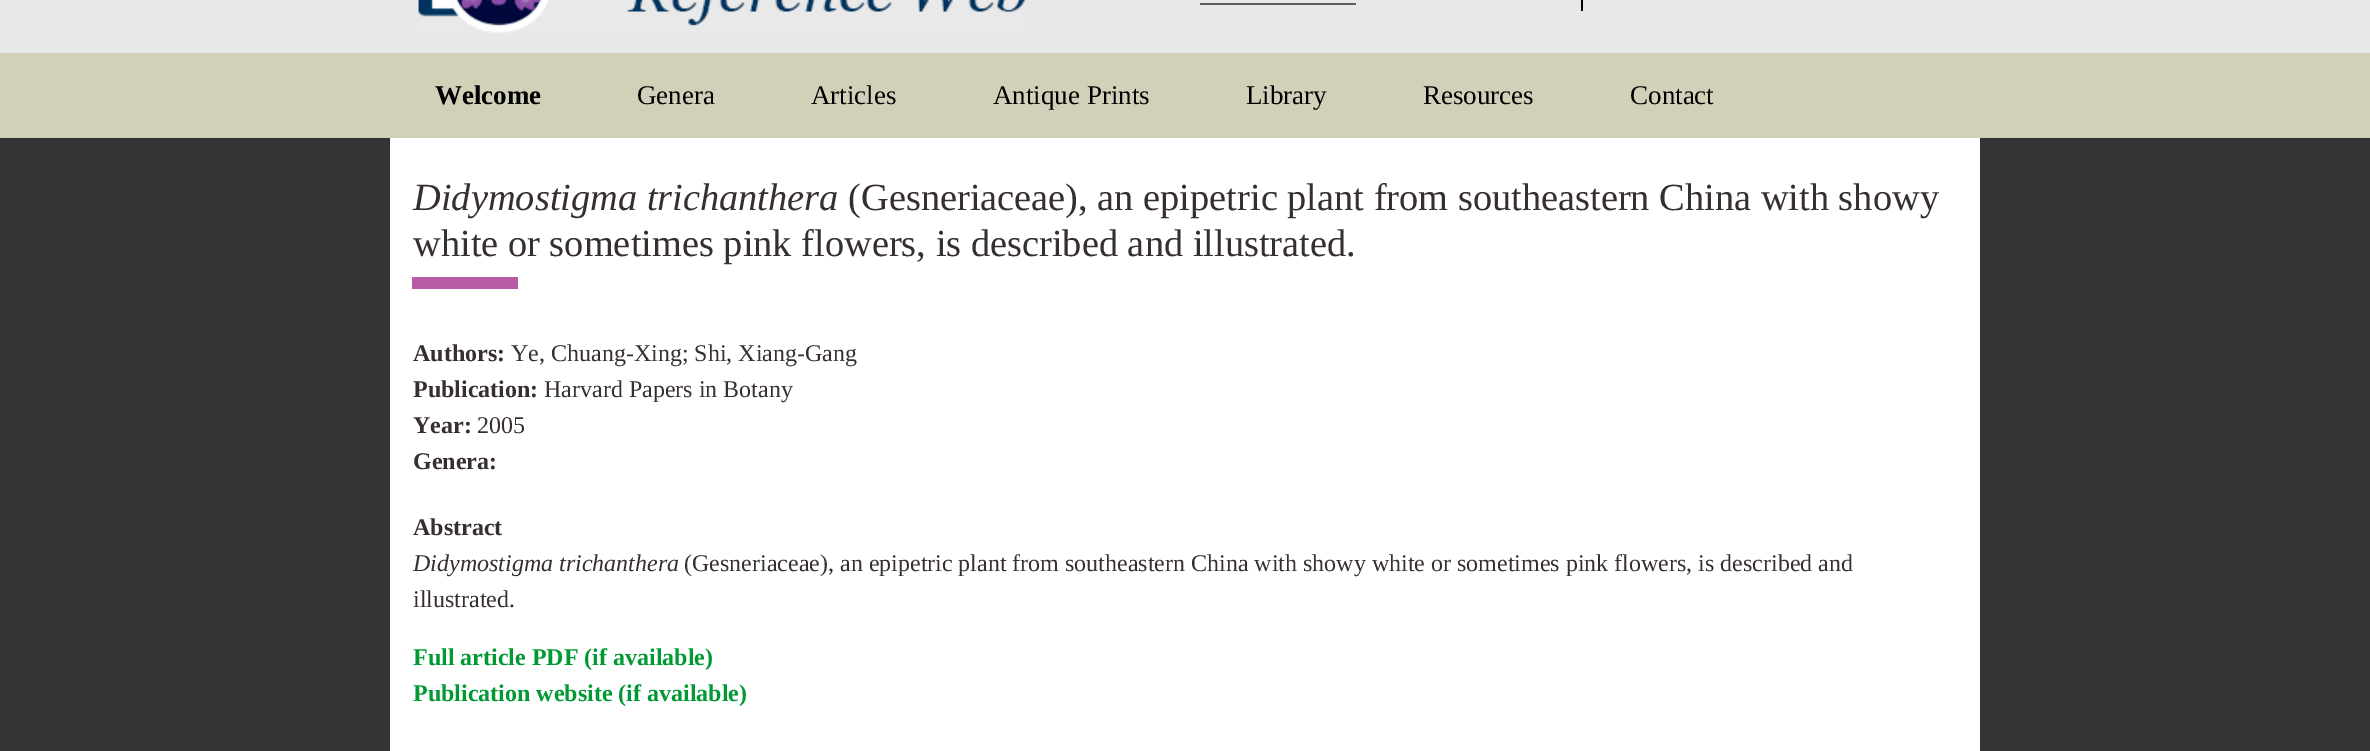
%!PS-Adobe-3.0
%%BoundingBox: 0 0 2370 751
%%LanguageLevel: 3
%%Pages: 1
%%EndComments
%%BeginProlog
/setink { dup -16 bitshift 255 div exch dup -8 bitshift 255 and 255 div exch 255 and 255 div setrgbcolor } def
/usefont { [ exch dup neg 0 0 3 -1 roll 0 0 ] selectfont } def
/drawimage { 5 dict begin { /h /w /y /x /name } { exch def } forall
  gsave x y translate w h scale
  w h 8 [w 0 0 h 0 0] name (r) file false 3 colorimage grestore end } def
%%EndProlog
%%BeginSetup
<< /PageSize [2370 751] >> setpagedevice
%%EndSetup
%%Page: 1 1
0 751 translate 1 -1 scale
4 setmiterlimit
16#343434 setink
0 0 2370 751 rectfill
16#E8E8E8 setink
0 0 2370 53 rectfill
(img1.raw) 418 0 608 33 drawimage
[
    [1581 0 2 11 16#000000]
    [1200 3 156 2 16#5D5D5D]
    [0 53 2370 85 16#D2D0B9]
] { aload pop setink rectfill } forall
/LiberationSerif-Bold 27 usefont
16#000000 setink
435 104 moveto (Welcome) show
/LiberationSerif-Regular 27 usefont
[
    [(Genera) 637 104]
    [(Articles) 811 104]
    [(Antique Prints) 993 104]
    [(Library) 1246 104]
    [(Resources) 1423 104]
    [(Contact) 1630 104]
] { aload pop moveto show } forall
16#FFFFFF setink
390 138 1590 613 rectfill
16#B75BA6 setink
412 277 106 12 rectfill
/LiberationSerif-Italic 38.4 usefont
16#362F2D setink
413 210 moveto (Didymostigma trichanthera) show
/LiberationSerif-Regular 38.4 usefont
848 210 moveto (\(Gesneriaceae\), an epipetric plant from southeastern China with showy) show
413 256 moveto (white or sometimes pink flowers, is described and illustrated.) show
/LiberationSerif-Bold 24 usefont
413 361 moveto (Authors:) show
/LiberationSerif-Regular 24 usefont
511 361 moveto (Ye, Chuang-Xing; Shi, Xiang-Gang) show
/LiberationSerif-Bold 24 usefont
413 397 moveto (Publication:) show
/LiberationSerif-Regular 24 usefont
544 397 moveto (Harvard Papers in Botany) show
/LiberationSerif-Bold 24 usefont
413 433 moveto (Year:) show
/LiberationSerif-Regular 24 usefont
477 433 moveto (2005) show
/LiberationSerif-Bold 24 usefont
413 469 moveto (Genera:) show
413 535 moveto (Abstract) show
/LiberationSerif-Italic 24 usefont
413 571 moveto (Didymostigma trichanthera) show
/LiberationSerif-Regular 24 usefont
684 571 moveto (\(Gesneriaceae\), an epipetric plant from southeastern China with showy white or sometimes pink flowers, is described and) show
413 607 moveto (illustrated.) show
/LiberationSerif-Bold 24 usefont
16#009933 setink
413 665 moveto (Full article PDF \(if available\)) show
413 701 moveto (Publication website \(if available\)) show
showpage
%%EOF
